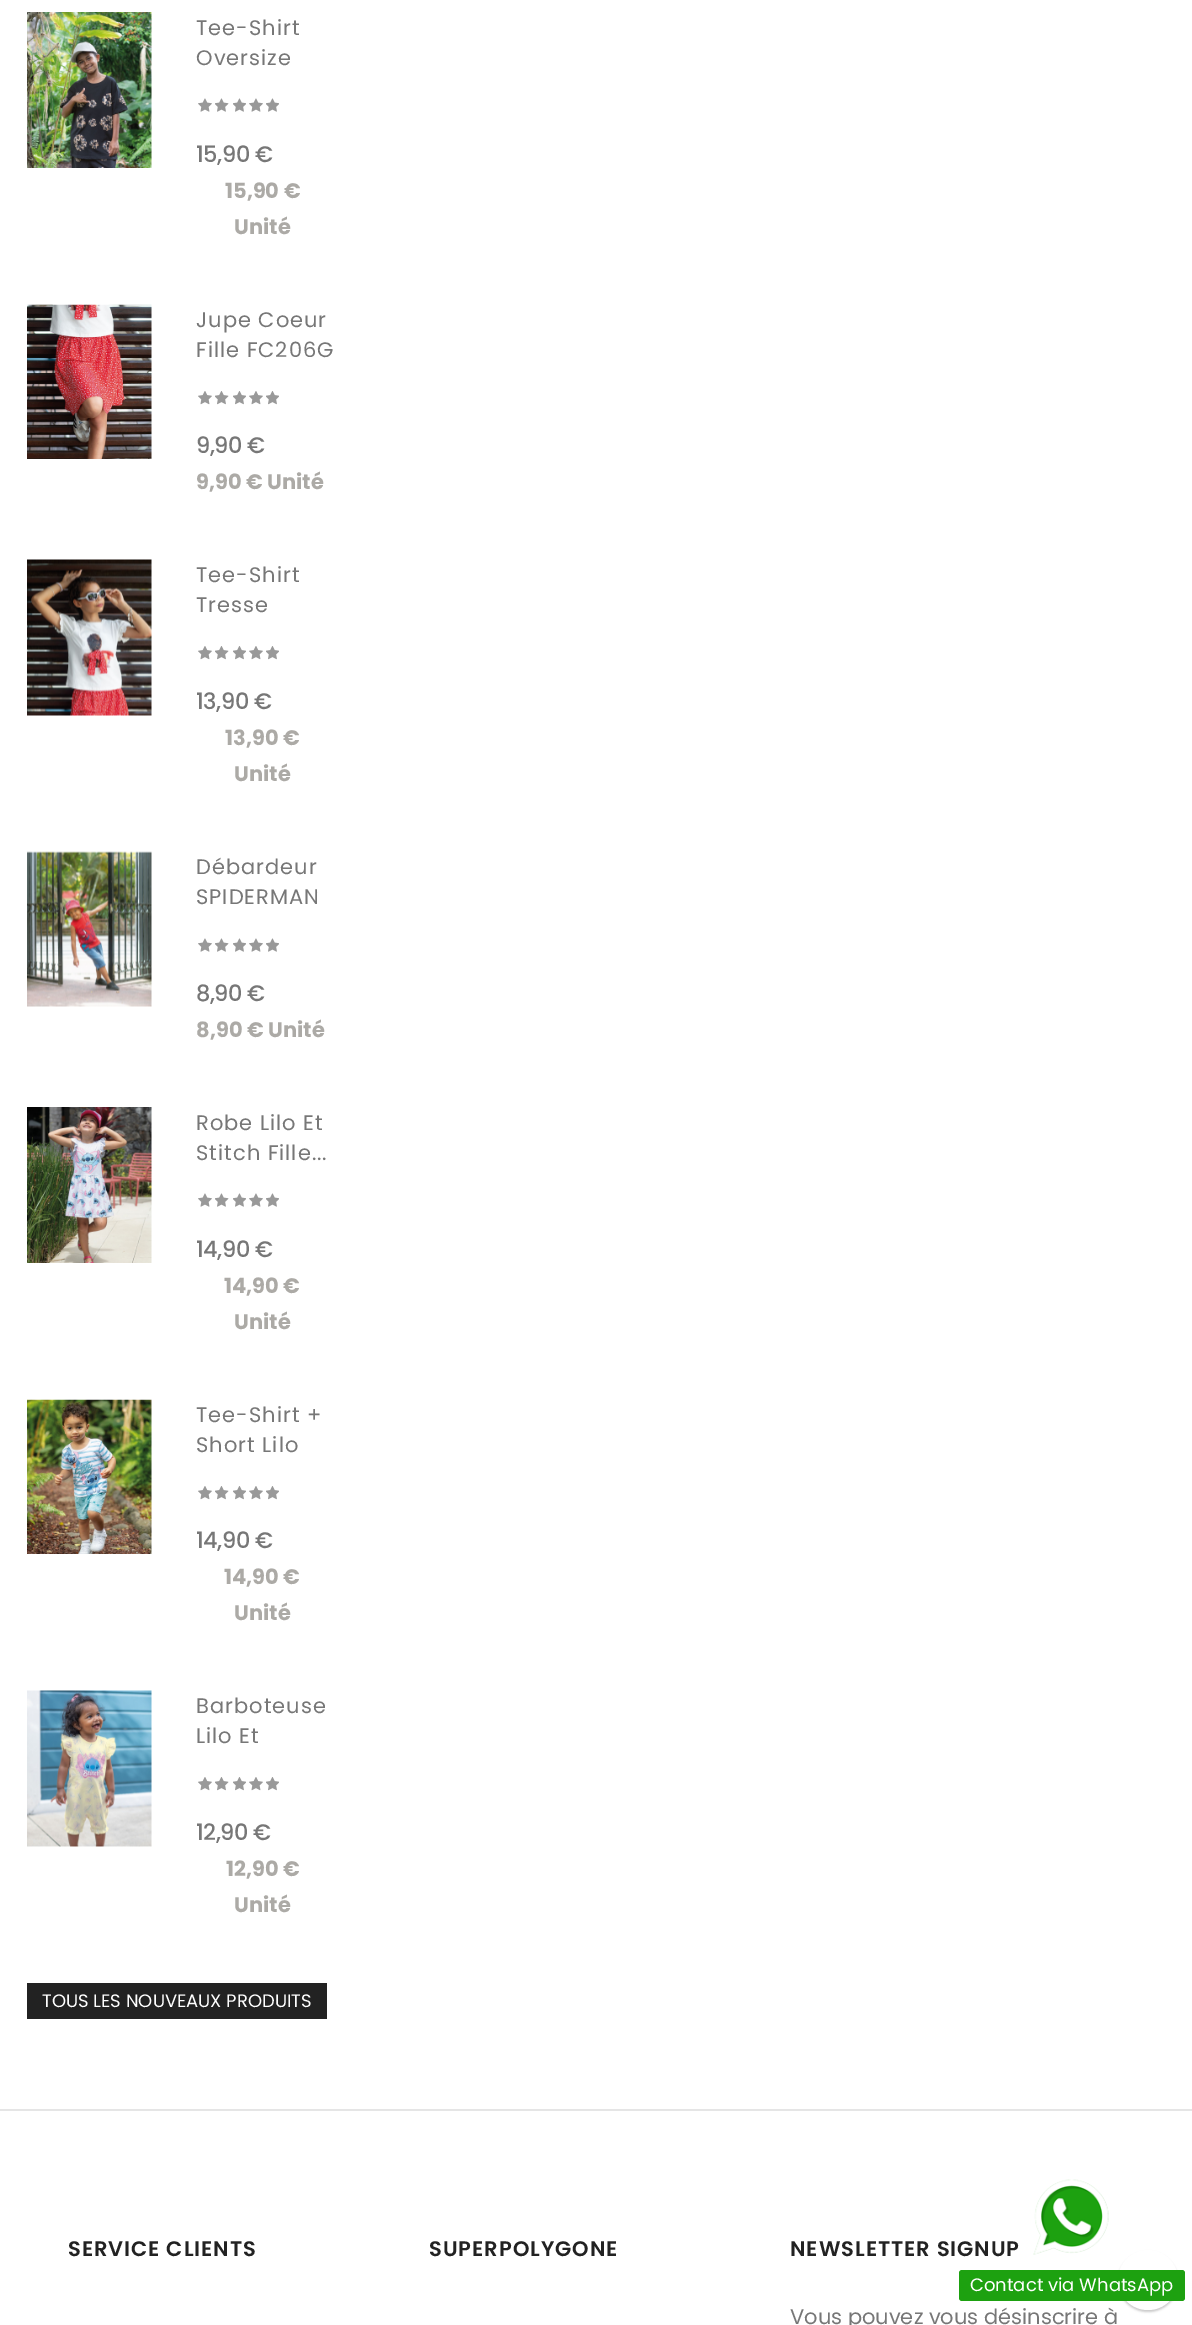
%!PS-Adobe-3.0
%%BoundingBox: 0 0 1192 2325
%%LanguageLevel: 3
%%Pages: 1
%%EndComments
%%BeginProlog
/setink { dup -16 bitshift 255 div exch dup -8 bitshift 255 and 255 div exch 255 and 255 div setrgbcolor } def
/usefont { [ exch dup neg 0 0 3 -1 roll 0 0 ] selectfont } def
/setalpha { dup .setfillconstantalpha .setstrokeconstantalpha } def
/disc { newpath 0 360 arc closepath } def
/rrect { 5 dict begin { /r /h /w /y /x } { exch def } forall
  x r add y moveto x w add y 2 copy h add r arct x w add y h add x 1 index r arct
  x y h add x y r arct x y 2 copy exch w add exch r arct closepath end } def
/softshadow { 12 dict begin { /a /b /q /h /w /y /x } { exch def } forall gsave /was 0 def
  9 -2 -9 { dup b mul 4 div /e exch def 1 sub .425 mul 2.718 exch exp 1 add a .99 .min exch div /now exch def
    1 1 now sub 1 was sub div sub setalpha /was now def
    w h .min e 2 mul add 0 gt { x e sub y e sub w e 2 mul add h e 2 mul add
      q e add b .6 mul add w h .min 2 div e add .min 0 .max rrect fill } if } for grestore end } def
/drawimage { 5 dict begin { /h /w /y /x /name } { exch def } forall
  gsave x y translate w h scale
  w h 8 [w 0 0 h 0 0] name (r) file false 3 colorimage grestore end } def
%%EndProlog
%%BeginSetup
<< /PageSize [1192 2325] /PageUsesTransparency true >> setpagedevice
%%EndSetup
%%Page: 1 1
0 .pushpdf14devicefilter
0 2325 translate 1 -1 scale
4 setmiterlimit
16#FFFFFF setink
0 0 1192 2325 rectfill
(img1.raw) 27 12 125 156 drawimage
/Poppins-Regular 21 usefont
16#777777 setink
196 35 moveto 1 0 (Tee-Shirt) ashow
196 65 moveto 1 0 (Oversize) ashow
(img2.raw) 198 98 14 14 drawimage
(img3.raw) 215 98 14 14 drawimage
(img4.raw) 233 98 13 14 drawimage
(img2.raw) 249 98 14 14 drawimage
(img4.raw) 266 98 13 14 drawimage
/Poppins-Medium 22.5 usefont
196 162 moveto -0.5 0 (15,90 €) ashow
/Poppins-Bold 21 usefont
16#ACAAA6 setink
225 198 moveto (15,90 €) show
234 234 moveto (Unité) show
(img5.raw) 27 304 125 155 drawimage
/Poppins-Regular 21 usefont
16#777777 setink
196 327 moveto 1 0 (Jupe Coeur) ashow
196 357 moveto 1 0 (Fille FC206G) ashow
(img6.raw) 198 391 14 14 drawimage
(img7.raw) 215 391 14 14 drawimage
(img8.raw) 233 391 13 14 drawimage
(img6.raw) 249 391 14 14 drawimage
(img8.raw) 266 391 13 14 drawimage
/Poppins-Medium 22.5 usefont
196 453 moveto -0.5 0 (9,90 €) ashow
/Poppins-Bold 21 usefont
16#ACAAA6 setink
196 489 moveto (9,90 € Unité) show
(img9.raw) 27 559 125 157 drawimage
/Poppins-Regular 21 usefont
16#777777 setink
196 582 moveto 1 0 (Tee-Shirt) ashow
196 612 moveto 1 0 (Tresse) ashow
(img6.raw) 198 646 14 14 drawimage
(img7.raw) 215 646 14 14 drawimage
(img8.raw) 233 646 13 14 drawimage
(img6.raw) 249 646 14 14 drawimage
(img8.raw) 266 646 13 14 drawimage
/Poppins-Medium 22.5 usefont
196 709 moveto -0.5 0 (13,90 €) ashow
/Poppins-Bold 21 usefont
16#ACAAA6 setink
225 745 moveto (13,90 €) show
234 781 moveto (Unité) show
(img10.raw) 27 851 125 156 drawimage
/Poppins-Regular 21 usefont
16#777777 setink
196 874 moveto 1 0 (Débardeur) ashow
196 904 moveto 1 0 (SPIDERMAN) ashow
(img2.raw) 198 938 14 14 drawimage
(img3.raw) 215 938 14 14 drawimage
(img4.raw) 233 938 13 14 drawimage
(img2.raw) 249 938 14 14 drawimage
(img4.raw) 266 938 13 14 drawimage
/Poppins-Medium 22.5 usefont
196 1001 moveto -0.5 0 (8,90 €) ashow
/Poppins-Bold 21 usefont
16#ACAAA6 setink
196 1037 moveto (8,90 € Unité) show
(img11.raw) 27 1107 125 156 drawimage
/Poppins-Regular 21 usefont
16#777777 setink
196 1130 moveto 1 0 (Robe Lilo Et) ashow
196 1160 moveto 1 0 (Stitch Fille...) ashow
(img2.raw) 198 1193 14 14 drawimage
(img3.raw) 215 1193 14 14 drawimage
(img4.raw) 233 1193 13 14 drawimage
(img2.raw) 249 1193 14 14 drawimage
(img4.raw) 266 1193 13 14 drawimage
/Poppins-Medium 22.5 usefont
196 1257 moveto -0.5 0 (14,90 €) ashow
/Poppins-Bold 21 usefont
16#ACAAA6 setink
224 1293 moveto (14,90 €) show
234 1329 moveto (Unité) show
(img12.raw) 27 1399 125 155 drawimage
/Poppins-Regular 21 usefont
16#777777 setink
196 1422 moveto 1 0 (Tee-Shirt +) ashow
196 1452 moveto 1 0 (Short Lilo) ashow
(img6.raw) 198 1486 14 14 drawimage
(img7.raw) 215 1486 14 14 drawimage
(img8.raw) 233 1486 13 14 drawimage
(img6.raw) 249 1486 14 14 drawimage
(img8.raw) 266 1486 13 14 drawimage
/Poppins-Medium 22.5 usefont
196 1548 moveto -0.5 0 (14,90 €) ashow
/Poppins-Bold 21 usefont
16#ACAAA6 setink
224 1584 moveto (14,90 €) show
234 1620 moveto (Unité) show
(img13.raw) 27 1690 125 157 drawimage
/Poppins-Regular 21 usefont
16#777777 setink
196 1713 moveto 1 0 (Barboteuse) ashow
196 1743 moveto 1 0 (Lilo Et) ashow
(img6.raw) 198 1777 14 14 drawimage
(img7.raw) 215 1777 14 14 drawimage
(img8.raw) 233 1777 13 14 drawimage
(img6.raw) 249 1777 14 14 drawimage
(img8.raw) 266 1777 13 14 drawimage
/Poppins-Medium 22.5 usefont
196 1840 moveto -0.5 0 (12,90 €) ashow
/Poppins-Bold 21 usefont
16#ACAAA6 setink
226 1876 moveto (12,90 €) show
234 1912 moveto (Unité) show
16#222222 setink
27 1983 300 36 rectfill
/Poppins-Regular 18 usefont
16#FFFFFF setink
42 2007 moveto (TOUS LES NOUVEAUX PRODUITS) show
16#E5E5E5 setink
0 2109 1192 2 rectfill
/Poppins-SemiBold 21 usefont
16#222222 setink
68 2256 moveto 1 0 (SERVICE CLIENTS) ashow
429 2256 moveto 1 0 (SUPERPOLYGONE) ashow
790 2256 moveto 1 0 (NEWSLETTER SIGNUP) ashow
/Poppins-Regular 21 usefont
16#777777 setink
790 2324 moveto (Vous pouvez vous désinscrire à) show
(img14.raw) 1033 2179 76 76 drawimage
16#000000 setink
1118 2252 60 60 30 1 0.2 softshadow
16#FFFFFF setink
1148 2280 30 disc fill
16#1DA110 setink
959 2270 226 31 3 rrect fill
/Poppins-Regular 18 usefont
16#FFFFFF setink
970 2291 moveto (Contact via WhatsApp) show
.poppdf14devicefilter showpage
%%EOF
